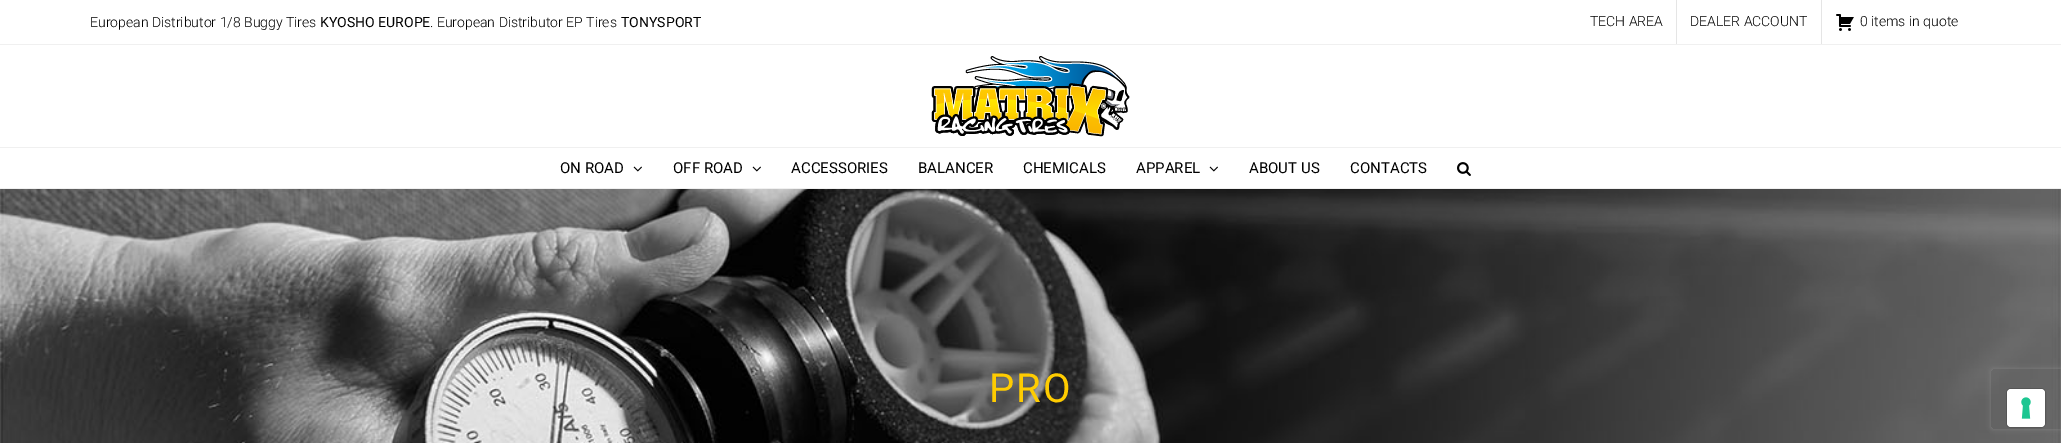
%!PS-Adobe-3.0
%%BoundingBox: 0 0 2061 443
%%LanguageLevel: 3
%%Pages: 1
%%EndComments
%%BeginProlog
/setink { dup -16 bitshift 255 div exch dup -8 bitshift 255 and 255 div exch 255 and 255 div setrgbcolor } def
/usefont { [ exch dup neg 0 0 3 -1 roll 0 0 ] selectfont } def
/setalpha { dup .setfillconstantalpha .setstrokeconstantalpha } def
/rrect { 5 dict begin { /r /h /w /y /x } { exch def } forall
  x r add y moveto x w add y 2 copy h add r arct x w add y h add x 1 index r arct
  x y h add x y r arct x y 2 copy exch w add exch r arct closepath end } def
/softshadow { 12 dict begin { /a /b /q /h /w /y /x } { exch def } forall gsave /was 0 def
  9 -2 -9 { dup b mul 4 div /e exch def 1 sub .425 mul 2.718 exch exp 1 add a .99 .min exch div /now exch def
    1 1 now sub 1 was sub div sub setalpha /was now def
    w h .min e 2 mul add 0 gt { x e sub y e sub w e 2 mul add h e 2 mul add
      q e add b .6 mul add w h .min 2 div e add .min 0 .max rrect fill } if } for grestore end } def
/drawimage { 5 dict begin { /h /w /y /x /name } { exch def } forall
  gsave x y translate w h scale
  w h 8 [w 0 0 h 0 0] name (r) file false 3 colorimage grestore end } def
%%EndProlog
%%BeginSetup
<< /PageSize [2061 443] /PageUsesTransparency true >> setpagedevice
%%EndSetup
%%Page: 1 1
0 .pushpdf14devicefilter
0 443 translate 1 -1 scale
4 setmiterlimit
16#FFFFFF setink
0 0 2061 443 rectfill
16#F0F0F0 setink
0 44 2061 1 rectfill
/Roboto-Light 14 usefont
16#000000 setink
90 27 moveto (European Distributor 1/8 Buggy Tires) show
/Roboto-Regular 14 usefont
320 27 moveto (KYOSHO EUROPE) show
/Roboto-Light 14 usefont
430 27 moveto (. European Distributor EP Tires) show
/Roboto-Regular 14 usefont
621 27 moveto (TONYSPORT) show
/Roboto-Light 14 usefont
1590 26 moveto (TECH AREA) show
16#E5E5E5 setink
1676 0 1 44 rectfill
16#000000 setink
1690 26 moveto (DEALER ACCOUNT) show
16#E5E5E5 setink
1821 0 1 44 rectfill
(img1.raw) 1836 14 18 17 drawimage
16#000000 setink
1860 26 moveto (0 items in quote) show
16#F0F0F0 setink
0 147 2061 1 rectfill
(img2.raw) 931 56 199 81 drawimage
0 188 2061 1 rectfill
/Roboto-Regular 15 usefont
16#000000 setink
560 173 moveto (ON ROAD) show
(img3.raw) 633 166 9 6 drawimage
673 173 moveto (OFF ROAD) show
(img3.raw) 752 166 9 6 drawimage
[
    [(ACCESSORIES) 791 173]
    [(BALANCER) 918 173]
    [(CHEMICALS) 1023 173]
    [(APPAREL) 1136 173]
] { aload pop moveto show } forall
(img3.raw) 1209 166 9 6 drawimage
1249 173 moveto (ABOUT US) show
1350 173 moveto (CONTACTS) show
(img4.raw) 1457 162 14 14 drawimage
(img5.raw) 0 189 2061 254 drawimage
/Roboto-Regular 40 usefont
16#FFCC00 setink
989 402 moveto 2 0 (PRO) ashow
gsave
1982 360 moveto 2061 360 lineto 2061 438 lineto 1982 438 lineto closepath 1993 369 moveto 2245 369 lineto 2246 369 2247 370 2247 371 curveto 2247 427 lineto 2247 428 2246 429 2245 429 curveto 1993 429 lineto 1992 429 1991 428 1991 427 curveto 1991 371 lineto 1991 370 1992 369 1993 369 curveto closepath eoclip newpath
16#808080 setink
1991 369 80 60 2 2.5 1 softshadow
grestore
0.15 setalpha
16#000000 setink
2006.5 388.5 39 39 4.5 rrect stroke
1 setalpha
16#FFFFFF setink
2007 389 38 38 4 rrect fill
(img6.raw) 2021 397 10 22 drawimage
.poppdf14devicefilter showpage
%%EOF
